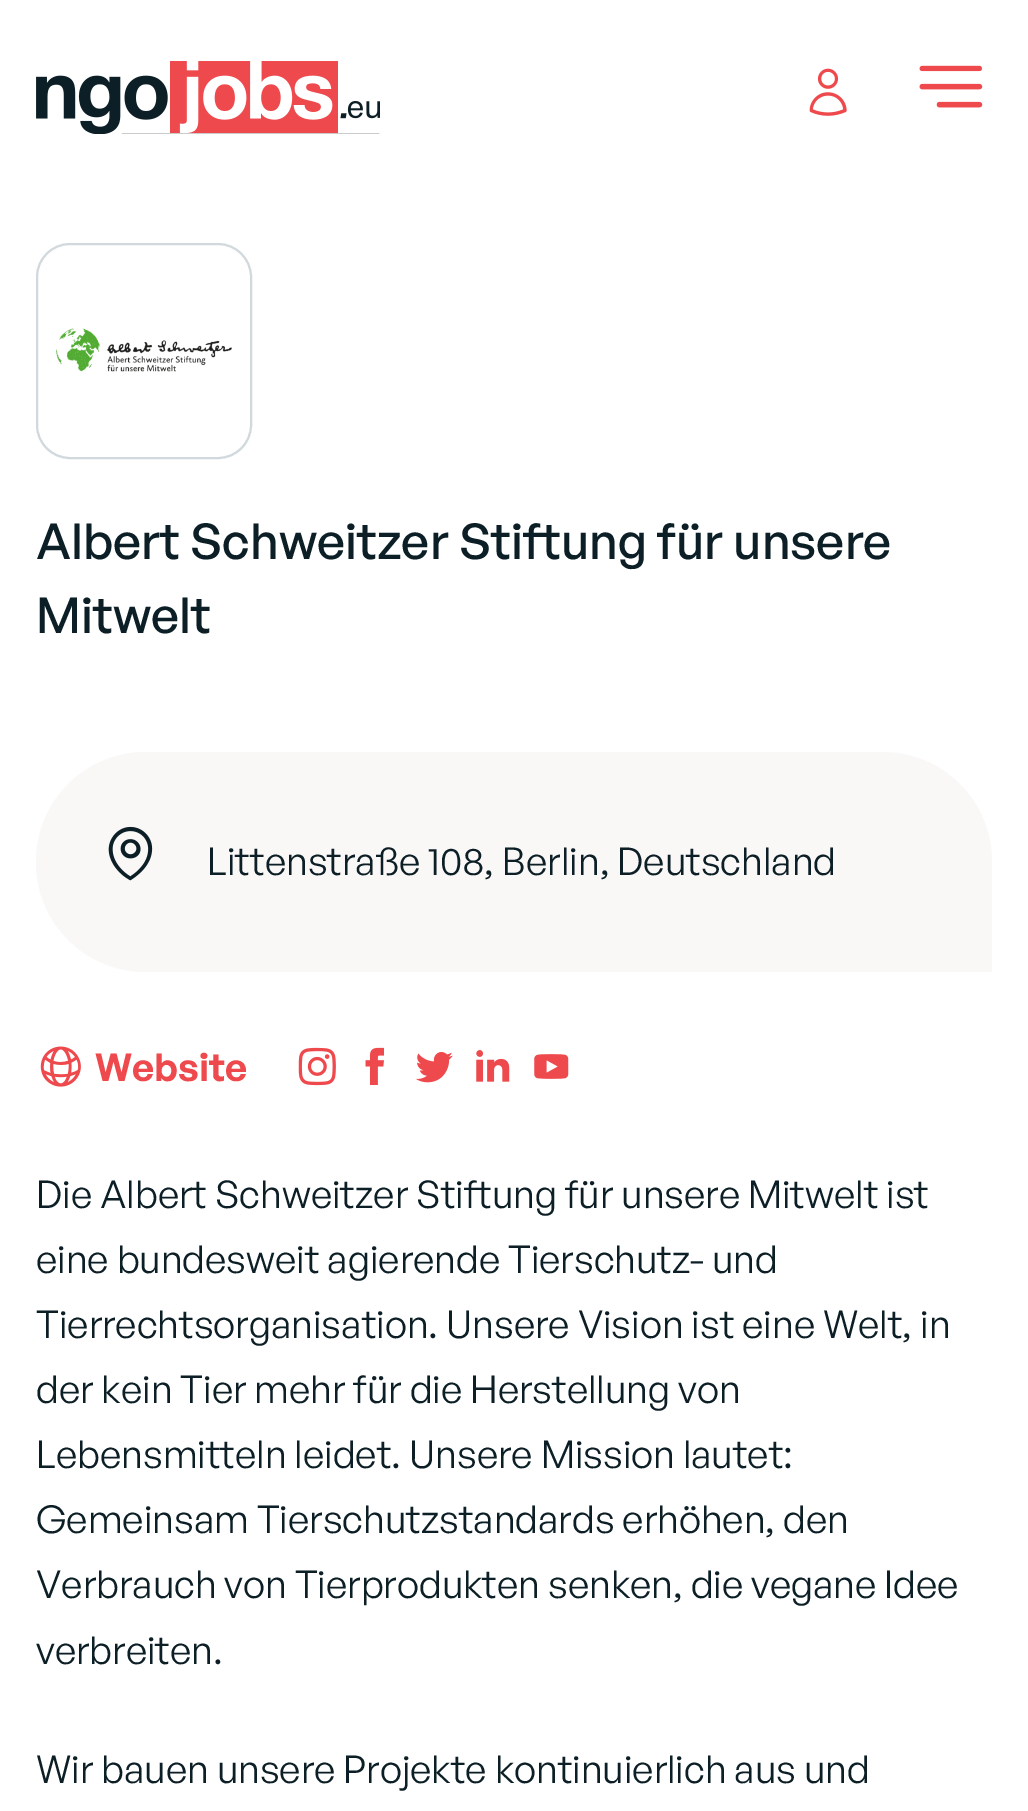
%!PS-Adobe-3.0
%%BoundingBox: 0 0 1028 1811
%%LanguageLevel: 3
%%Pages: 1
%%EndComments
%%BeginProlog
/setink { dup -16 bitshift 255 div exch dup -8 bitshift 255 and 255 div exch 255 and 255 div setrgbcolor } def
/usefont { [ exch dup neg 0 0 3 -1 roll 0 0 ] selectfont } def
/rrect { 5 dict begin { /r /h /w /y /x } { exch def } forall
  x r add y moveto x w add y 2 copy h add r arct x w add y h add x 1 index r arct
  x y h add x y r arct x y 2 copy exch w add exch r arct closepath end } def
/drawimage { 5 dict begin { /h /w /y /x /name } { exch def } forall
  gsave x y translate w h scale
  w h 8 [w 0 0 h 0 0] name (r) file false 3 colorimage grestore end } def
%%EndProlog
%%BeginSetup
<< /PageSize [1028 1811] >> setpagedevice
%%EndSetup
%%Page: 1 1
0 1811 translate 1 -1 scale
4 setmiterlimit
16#FFFFFF setink
0 0 1028 1811 rectfill
(img1.raw) 36 61 344 73 drawimage
(img2.raw) 809 68 38 48 drawimage
(img3.raw) 919 65 64 43 drawimage
16#D1D9DD setink
2 setlinewidth
37 244 214 214 33 rrect stroke
(img4.raw) 56 328 176 44 drawimage
/GeneralSans-Medium 49.5 usefont
16#0D1F26 setink
36 559 moveto (Albert Schweitzer Stiftung für unsere) show
36 633 moveto (Mitwelt) show
16#FAF7F7 setink
146 752 moveto 882 752 lineto 943 752 992 801 992 862 curveto 992 972 lineto 146 972 lineto 85 972 36 923 36 862 curveto 36 801 85 752 146 752 curveto closepath fill
(img5.raw) 108 826 45 55 drawimage
/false-Regular 38.25 usefont
16#0D1F26 setink
207 875 moveto (Littenstraße 108, Berlin, Deutschland) show
(img6.raw) 40 1046 41 41 drawimage
/GeneralSans-SemiBold 38.25 usefont
16#EE494C setink
95 1081 moveto (Website) show
(img7.raw) 298 1047 38 39 drawimage
(img8.raw) 365 1047 19 38 drawimage
(img9.raw) 416 1052 37 31 drawimage
(img10.raw) 476 1050 34 32 drawimage
(img11.raw) 534 1054 35 25 drawimage
/false-Regular 38.25 usefont
16#0D1F26 setink
[
    [(Die Albert Schweitzer Stiftung für unsere Mitwelt ist) 36 1208]
    [(eine bundesweit agierende Tierschutz- und) 36 1273]
    [(Tierrechtsorganisation. Unsere Vision ist eine Welt, in) 36 1338]
    [(der kein Tier mehr für die Herstellung von) 36 1403]
    [(Lebensmitteln leidet. Unsere Mission lautet:) 36 1468]
    [(Gemeinsam Tierschutzstandards erhöhen, den) 36 1533]
    [(Verbrauch von Tierprodukten senken, die vegane Idee) 36 1598]
    [(verbreiten.) 36 1664]
    [(Wir bauen unsere Projekte kontinuierlich aus und) 36 1783]
] { aload pop moveto show } forall
showpage
%%EOF
